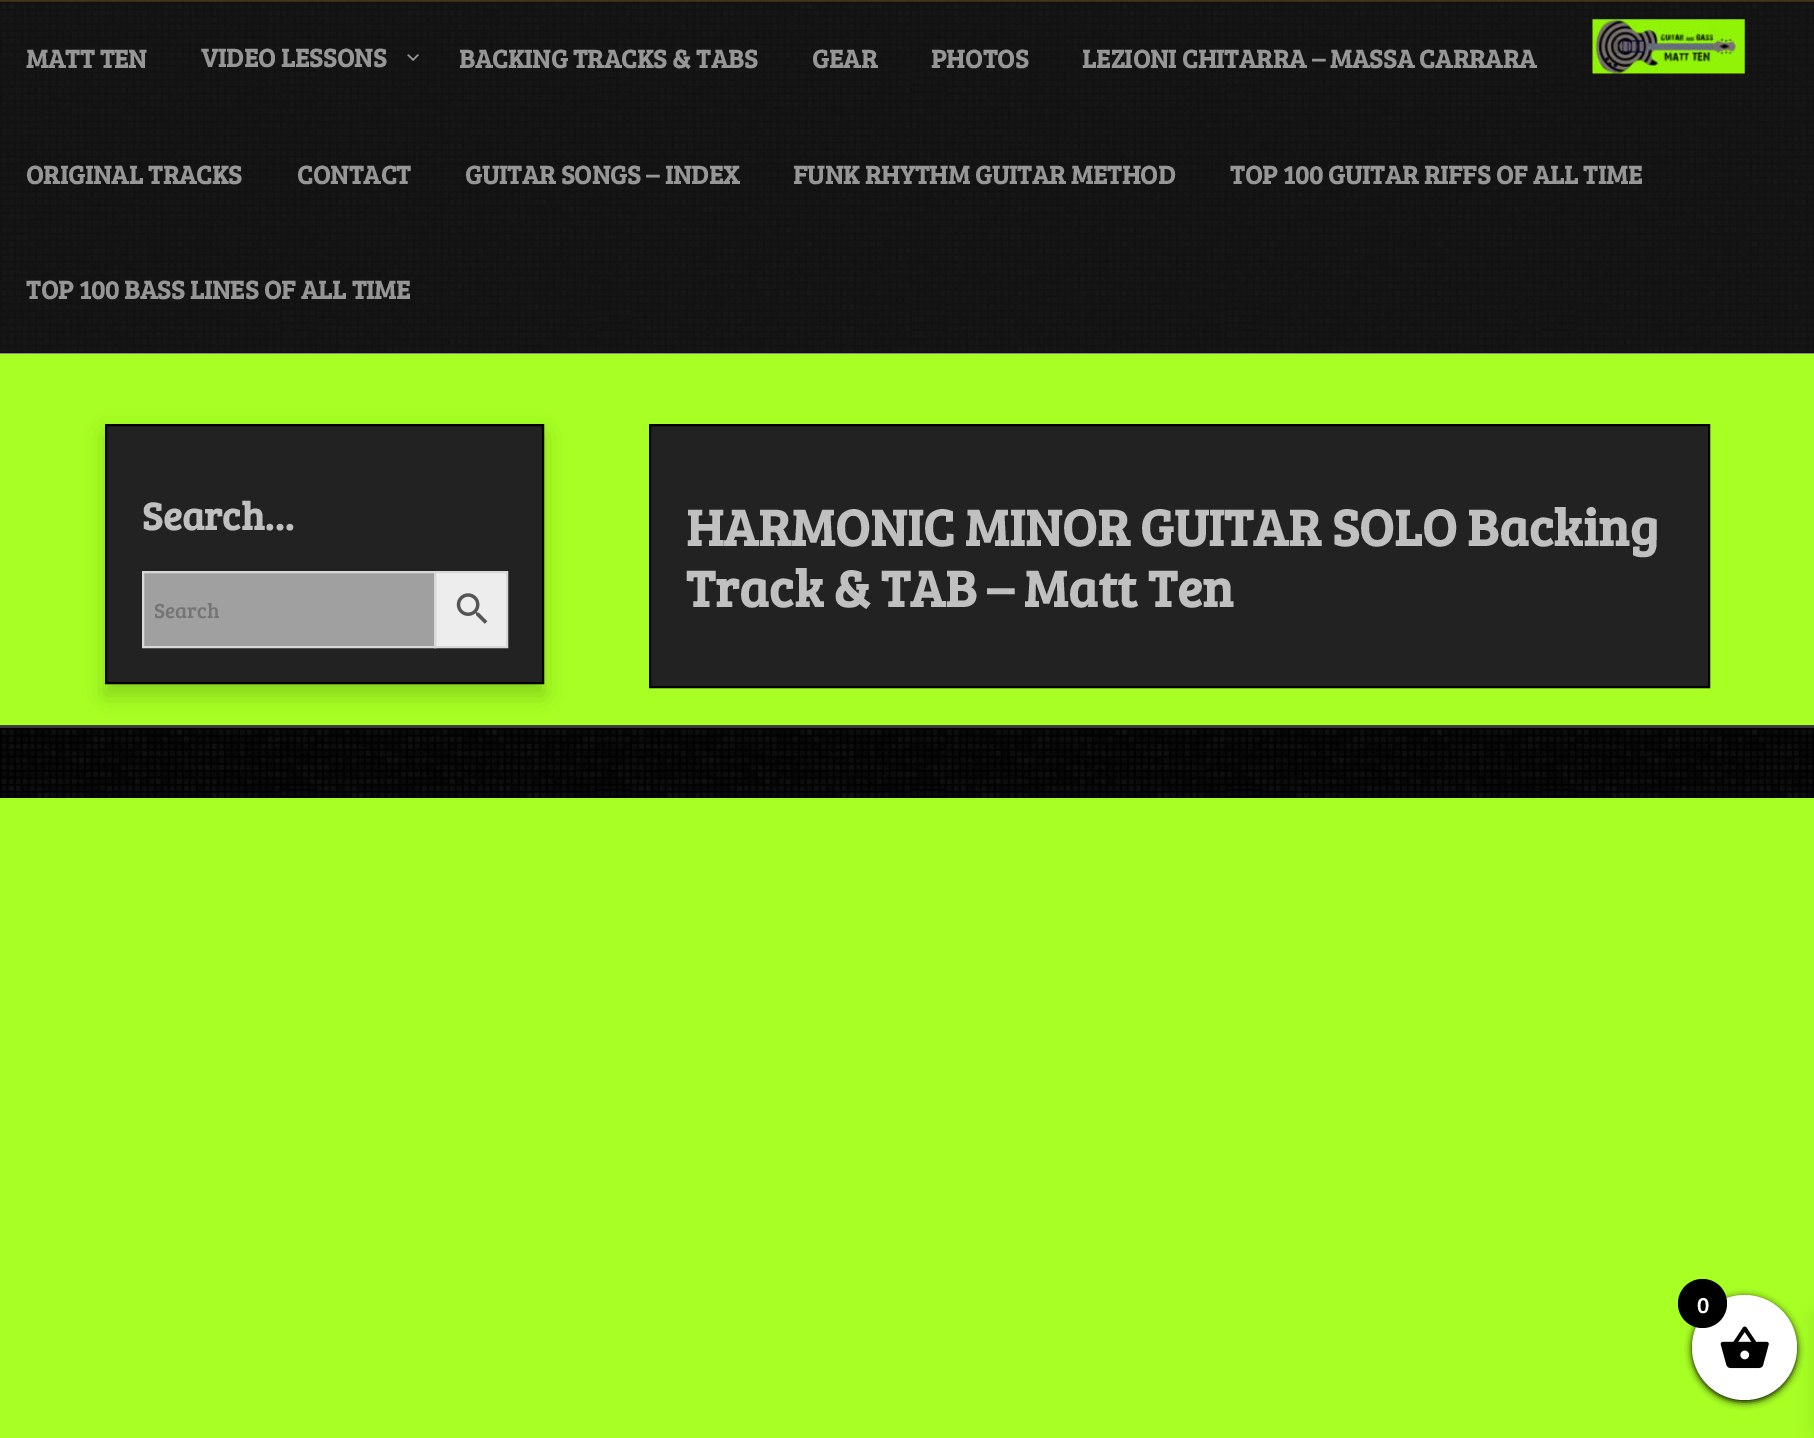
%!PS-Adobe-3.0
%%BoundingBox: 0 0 1814 1438
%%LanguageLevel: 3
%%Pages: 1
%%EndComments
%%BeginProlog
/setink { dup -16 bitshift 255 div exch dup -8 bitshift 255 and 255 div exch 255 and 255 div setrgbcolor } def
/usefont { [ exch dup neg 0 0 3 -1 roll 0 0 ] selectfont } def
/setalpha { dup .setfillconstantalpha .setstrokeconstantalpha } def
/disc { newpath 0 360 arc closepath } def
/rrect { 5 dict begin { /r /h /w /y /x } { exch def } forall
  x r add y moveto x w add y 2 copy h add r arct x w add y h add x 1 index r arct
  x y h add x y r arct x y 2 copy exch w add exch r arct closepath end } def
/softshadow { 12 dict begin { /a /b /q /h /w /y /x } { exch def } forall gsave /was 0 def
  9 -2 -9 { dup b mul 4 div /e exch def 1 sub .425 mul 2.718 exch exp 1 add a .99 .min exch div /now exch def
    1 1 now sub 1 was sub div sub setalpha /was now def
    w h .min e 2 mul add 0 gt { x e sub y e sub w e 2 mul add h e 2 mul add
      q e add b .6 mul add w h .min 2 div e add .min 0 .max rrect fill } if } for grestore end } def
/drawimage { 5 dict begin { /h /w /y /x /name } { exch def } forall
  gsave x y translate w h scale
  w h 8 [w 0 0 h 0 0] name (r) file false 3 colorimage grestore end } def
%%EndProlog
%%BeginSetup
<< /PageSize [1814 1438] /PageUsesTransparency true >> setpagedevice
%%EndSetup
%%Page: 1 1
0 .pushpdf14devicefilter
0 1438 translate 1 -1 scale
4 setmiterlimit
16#A7FF23 setink
0 0 1814 1438 rectfill
16#44341B setink
0 0 1814 2 rectfill
16#FFFFFF setink
0 353 1814 1 rectfill
(img1.raw) 0 1 1814 353 drawimage
/BreeSerif-Bold 26.25 usefont
16#969696 setink
26 68 moveto (MATT TEN) show
201 67 moveto (VIDEO LESSONS) show
(img2.raw) 407 54 12 7 drawimage
[
    [(BACKING TRACKS & TABS) 459 68]
    [(GEAR) 812 68]
    [(PHOTOS) 931 68]
    [(LEZIONI CHITARRA – MASSA CARRARA) 1082 68]
    [(ORIGINAL TRACKS) 26 184]
    [(CONTACT) 297 184]
    [(GUITAR SONGS – INDEX) 465 184]
    [(FUNK RHYTHM GUITAR METHOD) 793 184]
    [(TOP 100 GUITAR RIFFS OF ALL TIME) 1230 184]
    [(TOP 100 BASS LINES OF ALL TIME) 26 299]
] { aload pop moveto show } forall
(img3.raw) 1592 19 153 55 drawimage
16#000000 setink
105 434 439 261 0 10.5 0.18 softshadow
16#222222 setink
106 425 moveto 543 425 lineto 543 683 lineto 106 683 lineto closepath gsave fill grestore
16#000000 setink
2 setlinewidth
stroke
/BreeSerif-Bold 39.5 usefont
16#C0C0C0 setink
142 530 moveto (Search…) show
16#EDEDED setink
435 572 moveto 507 572 lineto 507 647 lineto 435 647 lineto closepath gsave fill grestore
16#D8D8D8 setink
stroke
16#A0A0A0 setink
143 572 moveto 435 572 lineto 435 647 lineto 143 647 lineto closepath gsave fill grestore
16#D8D8D8 setink
stroke
/BreeSerif-Regular 21 usefont
16#757575 setink
154 618 moveto (Search) show
(img4.raw) 456 593 32 31 drawimage
16#222222 setink
650 425 moveto 1709 425 lineto 1709 687 lineto 650 687 lineto closepath gsave fill grestore
16#000000 setink
stroke
/BreeSerif-Bold 52.5 usefont
16#C0C0C0 setink
686 546 moveto (HARMONIC MINOR GUITAR SOLO Backing) show
686 607 moveto (Track & TAB – Matt Ten) show
[
    [0 725 1814 1 16#444444]
    [0 726 1814 2 16#383838]
    [0 728 1814 70 16#000000]
] { aload pop setink rectfill } forall
(img5.raw) 1 729 1812 69 drawimage
1692 1297 105 105 52.5 3.5 1 softshadow
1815 1316 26 114 0 9 0.1 softshadow
16#FFFFFF setink
1744.5 1347.5 52.5 disc fill
(img6.raw) 1720 1326 49 43 drawimage
16#000000 setink
1702.5 1303.5 24.5 disc fill
/BreeSerif-Regular 23 usefont
16#FFFFFF setink
1697 1313 moveto (0) show
.poppdf14devicefilter showpage
%%EOF
